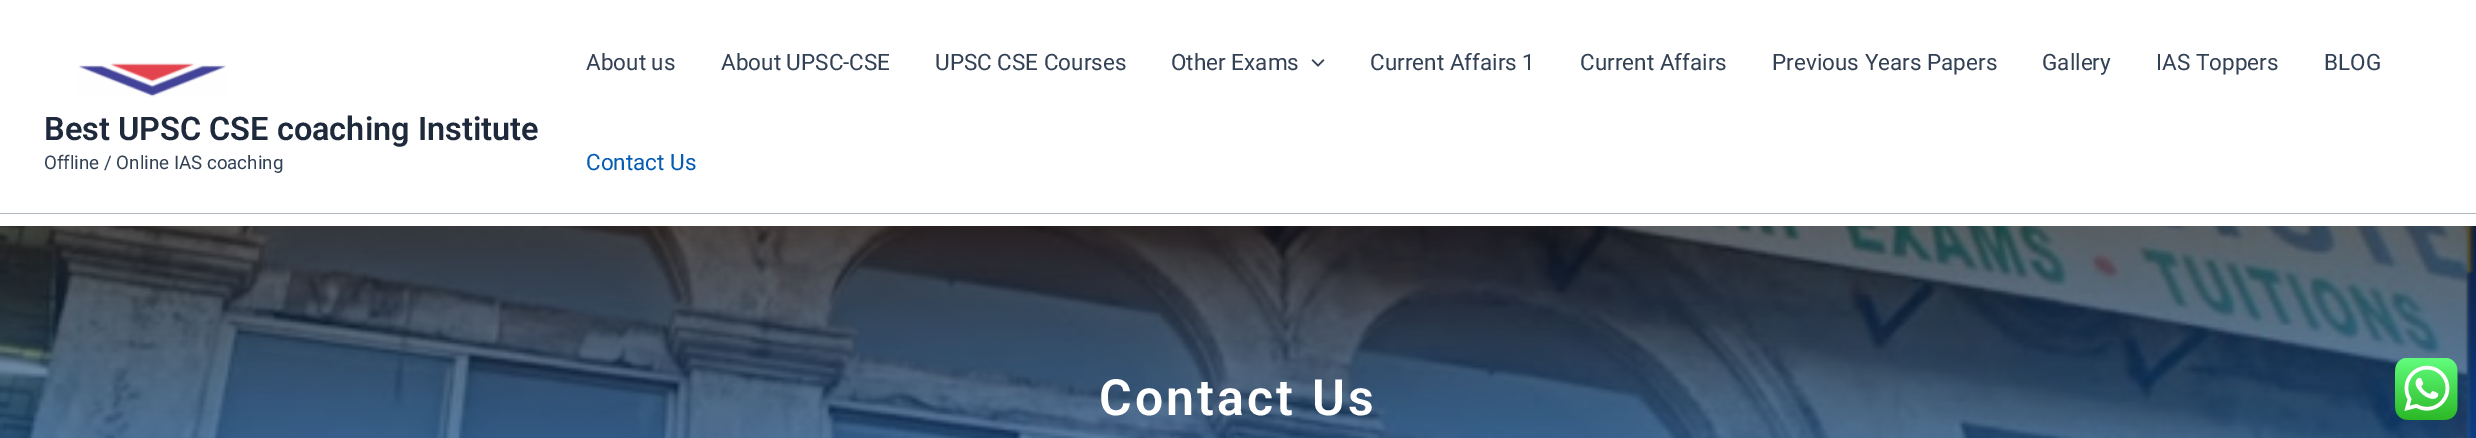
%!PS-Adobe-3.0
%%BoundingBox: 0 0 2476 438
%%LanguageLevel: 3
%%Pages: 1
%%EndComments
%%BeginProlog
/setink { dup -16 bitshift 255 div exch dup -8 bitshift 255 and 255 div exch 255 and 255 div setrgbcolor } def
/usefont { [ exch dup neg 0 0 3 -1 roll 0 0 ] selectfont } def
/drawimage { 5 dict begin { /h /w /y /x /name } { exch def } forall
  gsave x y translate w h scale
  w h 8 [w 0 0 h 0 0] name (r) file false 3 colorimage grestore end } def
%%EndProlog
%%BeginSetup
<< /PageSize [2476 438] >> setpagedevice
%%EndSetup
%%Page: 1 1
0 438 translate 1 -1 scale
4 setmiterlimit
16#FFFFFF setink
0 0 2476 438 rectfill
16#ADB6BE setink
0 213 2476 1 rectfill
(img1.raw) 78 63 148 34 drawimage
/Roboto-SemiBold 32.5 usefont
16#1E293B setink
44 140 moveto (Best UPSC CSE coaching Institute) show
/Roboto-Regular 18.75 usefont
16#334155 setink
44 169 moveto (Offline / Online IAS coaching) show
/Roboto-Regular 22.5 usefont
[
    [(About us) 586 70]
    [(About UPSC-CSE) 721 70]
    [(UPSC CSE Courses) 935 70]
    [(Other Exams) 1171 70]
] { aload pop moveto show } forall
(img2.raw) 1311 59 14 8 drawimage
[
    [(Current Affairs 1) 1370 70]
    [(Current Affairs) 1580 70]
    [(Previous Years Papers) 1772 70]
    [(Gallery) 2042 70]
    [(IAS Toppers) 2156 70]
    [(BLOG) 2324 70]
] { aload pop moveto show } forall
16#045CB4 setink
586 170 moveto (Contact Us) show
(img3.raw) 0 226 2476 212 drawimage
/Roboto-SemiBold 50 usefont
16#FFFFFF setink
1099 415 moveto 3.1 0 (Contact Us) ashow
(img4.raw) 2395 358 63 62 drawimage
showpage
%%EOF
